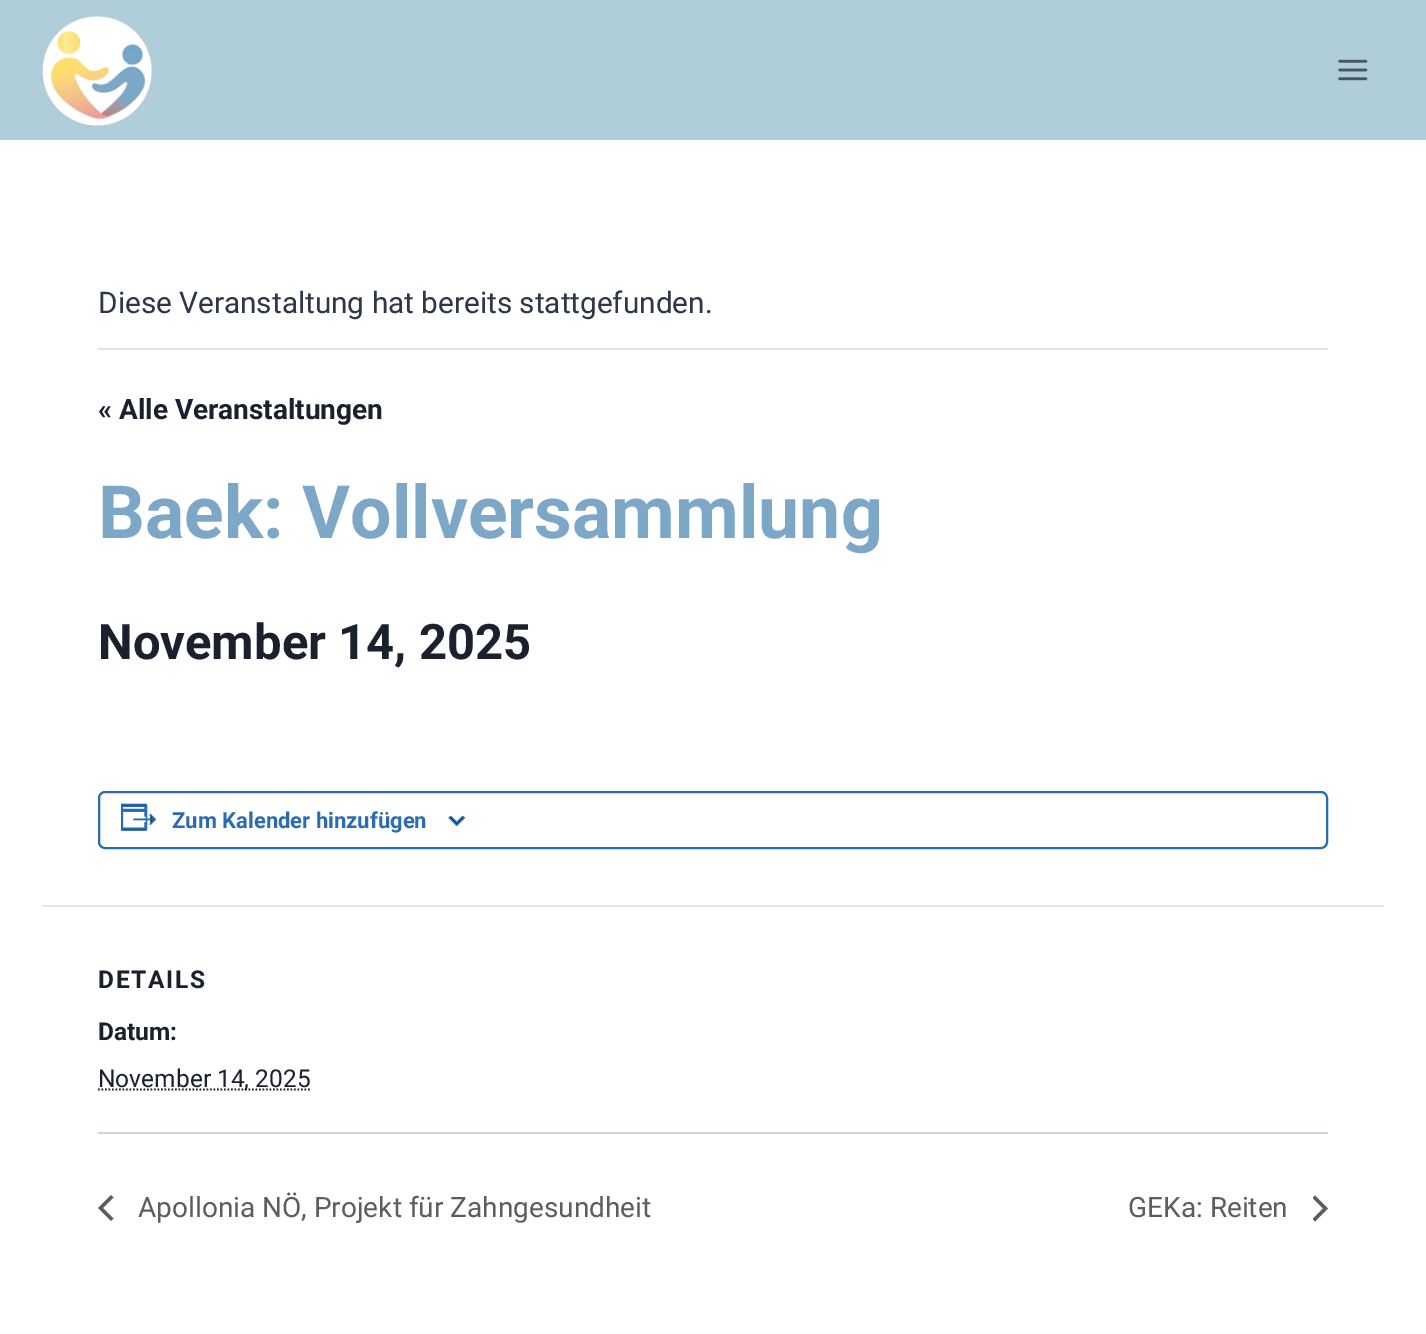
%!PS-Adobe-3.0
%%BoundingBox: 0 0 1426 1334
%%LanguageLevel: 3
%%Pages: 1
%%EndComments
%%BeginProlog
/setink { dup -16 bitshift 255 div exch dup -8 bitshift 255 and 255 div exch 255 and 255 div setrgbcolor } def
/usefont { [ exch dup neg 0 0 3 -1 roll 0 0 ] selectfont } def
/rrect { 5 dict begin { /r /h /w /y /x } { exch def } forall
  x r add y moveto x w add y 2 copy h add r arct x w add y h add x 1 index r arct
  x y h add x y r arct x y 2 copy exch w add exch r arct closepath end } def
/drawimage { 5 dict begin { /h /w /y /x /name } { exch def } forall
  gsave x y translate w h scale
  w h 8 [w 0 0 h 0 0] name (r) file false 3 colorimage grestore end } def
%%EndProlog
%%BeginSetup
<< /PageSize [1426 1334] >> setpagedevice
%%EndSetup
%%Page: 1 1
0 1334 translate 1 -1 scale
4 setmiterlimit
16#FFFFFF setink
0 0 1426 1334 rectfill
16#AFCEDA setink
0 0 1426 140 rectfill
(img1.raw) 42 15 111 111 drawimage
(img2.raw) 1338 59 30 22 drawimage
16#E4E4E4 setink
98 348 1230 2 rectfill
/Roboto-Regular 29.75 usefont
16#2D3748 setink
98 313 moveto (Diese Veranstaltung hat bereits stattgefunden.) show
/Roboto-Bold 28 usefont
16#1A202C setink
98 419 moveto (« Alle Veranstaltungen) show
/Roboto-Bold 73.5 usefont
16#7CA7C7 setink
98 538 moveto (Baek: Vollversammlung) show
/Roboto-Bold 49 usefont
16#1A202C setink
98 659 moveto (November 14, 2025) show
16#2B6CB0 setink
2 setlinewidth
99 792 1228 56 6 rrect stroke
(img3.raw) 121 803 35 28 drawimage
/Roboto-Bold 22 usefont
172 828 moveto (Zum Kalender hinzufügen) show
(img4.raw) 448 816 18 10 drawimage
16#E4E4E4 setink
42 905 1342 2 rectfill
/Roboto-Bold 24.5 usefont
16#1A202C setink
98 988 moveto 1.75 0 (DETAILS) ashow
98 1040 moveto (Datum:) show
1.8 setlinewidth
[1.75 1.75] 0 setdash
98 1089.5 moveto 310.5 1089.5 lineto stroke
/Roboto-Regular 24.5 usefont
98 1087 moveto (November 14, 2025) show
16#CBD5E0 setink
98 1132 1230 2 rectfill
16#5D5D5D setink
113.5 1218.5 moveto 111 1221 lineto 98 1208 lineto 111 1195 lineto 113.5 1197.5 lineto 103 1208 lineto closepath fill
/Roboto-Regular 28 usefont
138 1217 moveto (Apollonia NÖ, Projekt für Zahngesundheit) show
1128 1217 moveto (GEKa: Reiten) show
gsave
1313 1195 15 27 rectclip
1312.5 1198 moveto 1315 1195.5 lineto 1328 1208.5 lineto 1315 1221.5 lineto 1312.5 1219 lineto 1323 1208.5 lineto closepath fill
grestore
showpage
%%EOF
